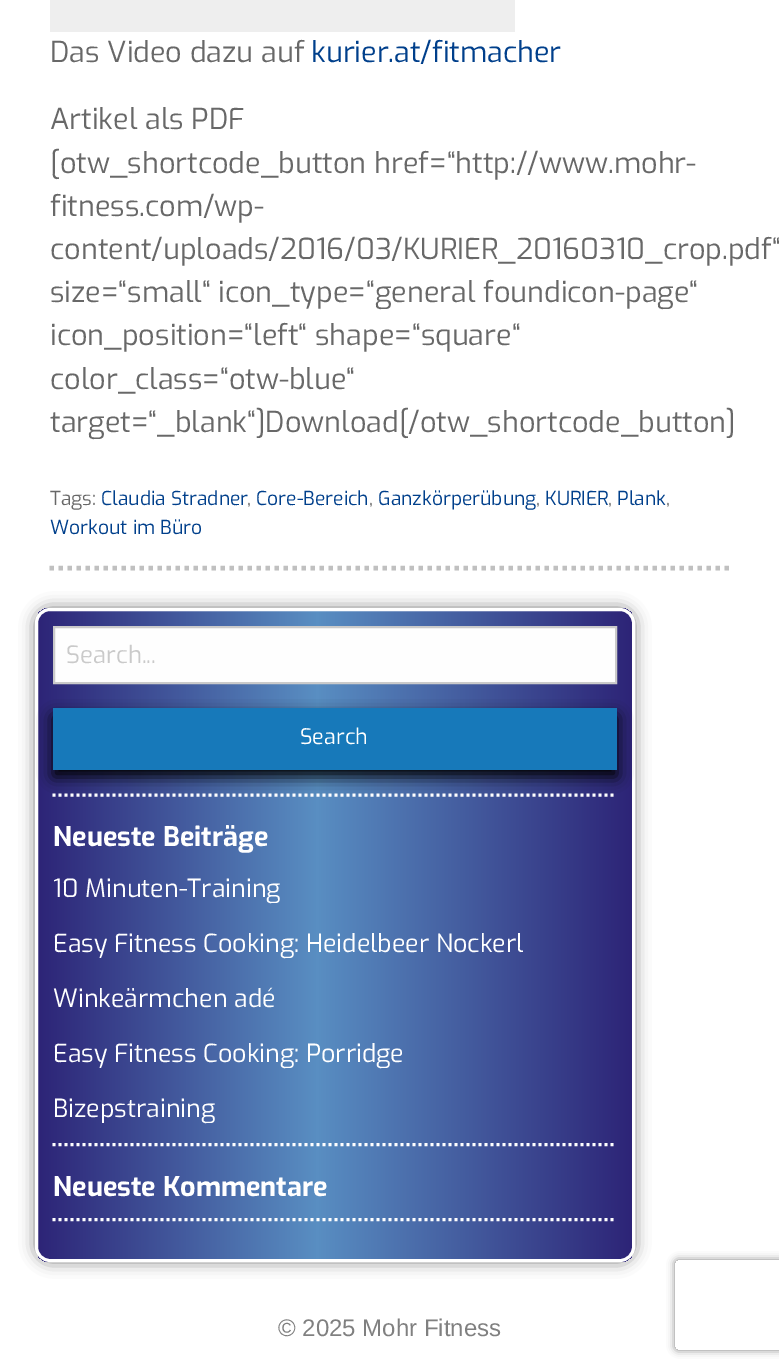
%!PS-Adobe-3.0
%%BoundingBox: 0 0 779 1370
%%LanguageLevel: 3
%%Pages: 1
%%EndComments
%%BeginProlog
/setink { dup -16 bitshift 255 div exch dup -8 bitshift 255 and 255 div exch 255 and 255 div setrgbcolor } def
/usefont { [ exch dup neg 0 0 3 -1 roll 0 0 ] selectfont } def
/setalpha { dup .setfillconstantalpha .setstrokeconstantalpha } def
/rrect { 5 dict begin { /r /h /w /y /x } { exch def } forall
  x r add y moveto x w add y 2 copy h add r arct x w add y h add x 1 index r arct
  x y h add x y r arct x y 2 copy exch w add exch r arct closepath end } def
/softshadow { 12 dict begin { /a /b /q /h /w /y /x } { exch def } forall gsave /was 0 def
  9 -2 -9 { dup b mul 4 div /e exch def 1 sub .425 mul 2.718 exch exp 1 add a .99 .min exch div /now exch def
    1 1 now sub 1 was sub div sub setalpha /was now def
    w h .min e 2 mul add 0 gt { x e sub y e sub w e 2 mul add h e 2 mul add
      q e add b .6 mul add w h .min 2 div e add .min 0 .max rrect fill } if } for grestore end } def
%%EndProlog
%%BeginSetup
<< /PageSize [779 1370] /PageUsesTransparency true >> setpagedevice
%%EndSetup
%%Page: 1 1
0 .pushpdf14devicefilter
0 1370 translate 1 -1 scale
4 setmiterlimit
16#FFFFFF setink
0 0 779 1370 rectfill
16#C0C0C0 setink
4.5 setlinewidth
[4.5 4.5] 0 setdash
49.5 568 moveto 730.5 568 lineto stroke
16#EEEEEE setink
50 0 465 32 rectfill
/Exo-Regular 28.8 usefont
16#686868 setink
50 62 moveto (Das Video dazu auf) show
16#003F8B setink
311 62 moveto (kurier.at/fitmacher) show
16#686868 setink
[
    [(Artikel als PDF) 50 129]
    [([otw_shortcode_button href=“http://www.mohr-) 50 173]
    [(fitness.com/wp-) 50 216]
    [(content/uploads/2016/03/KURIER_20160310_crop.pdf“) 50 259]
    [(size=“small“ icon_type=“general foundicon-page“) 50 302]
    [(icon_position=“left“ shape=“square“) 50 345]
    [(color_class=“otw-blue“) 50 389]
    [(target=“_blank“]Download[/otw_shortcode_button]) 50 432]
] { aload pop moveto show } forall
/Exo-Regular 19.25 usefont
50 505 moveto (Tags:) show
16#003F8B setink
101 505 moveto (Claudia Stradner) show
16#686868 setink
247 505 moveto (,) show
16#003F8B setink
256 505 moveto (Core-Bereich) show
16#686868 setink
369 505 moveto (,) show
16#003F8B setink
378 505 moveto (Ganzkörperübung) show
16#686868 setink
536 505 moveto (,) show
16#003F8B setink
545 505 moveto (KURIER) show
16#686868 setink
608 505 moveto (,) show
16#003F8B setink
617 505 moveto (Plank) show
16#686868 setink
666 505 moveto (,) show
16#003F8B setink
50 534 moveto (Workout im Büro) show
16#808080 setink
35 608 600 654 15 7.5 1 softshadow
gsave
35 608 600 654 15 rrect clip newpath
gsave 38 608 moveto 632 608 lineto 632 1262 lineto 38 1262 lineto closepath clip newpath
<< /ShadingType 2 /ColorSpace /DeviceRGB /Coords [38 935 632 935] /Extend [true true] /Function << /FunctionType 3 /Domain [0 1] /Functions [<< /FunctionType 2 /Domain [0 1] /C0 [0.176 0.141 0.467] /C1 [0.349 0.557 0.761] /N 1 >> << /FunctionType 2 /Domain [0 1] /C0 [0.349 0.557 0.761] /C1 [0.176 0.141 0.467] /N 1 >>] /Bounds [0.47] /Encode [0 1 0 1] >> >> shfill grestore
grestore
16#FFFFFF setink
3 setlinewidth
[] 0 setdash
36.5 609.5 597 651 13.5 rrect stroke
[3 3] 0 setdash
52.5 795 moveto 616.5 795 lineto stroke
16#FEFEFE setink
54 627 moveto 616 627 lineto 616 683 lineto 54 683 lineto closepath gsave fill grestore
16#CACACA setink
2 setlinewidth
[] 0 setdash
stroke
/Exo-Regular 24 usefont
66 663 moveto (Search...) show
16#000000 setink
53 716 564 61 0 7.5 1 softshadow
16#1779BA setink
53 708 564 62 rectfill
/Exo-Regular 21.5 usefont
16#FFFFFF setink
300 744 moveto (Search) show
3 setlinewidth
[3 3] 0 setdash
52.5 1144.5 moveto 616.5 1144.5 lineto stroke
/Exo-Bold 27 usefont
53 846 moveto (Neueste Beiträge) show
/Exo-Regular 25 usefont
[
    [(10 Minuten-Training) 53 897]
    [(Easy Fitness Cooking: Heidelbeer Nockerl) 53 952]
    [(Winkeärmchen adé) 53 1007]
    [(Easy Fitness Cooking: Porridge) 53 1062]
    [(Bizepstraining) 53 1117]
] { aload pop moveto show } forall
52.5 1219.5 moveto 616.5 1219.5 lineto stroke
/Exo-Bold 27 usefont
53 1196 moveto (Neueste Kommentare) show
/LiberationSans-Regular 24 usefont
16#808080 setink
278 1336 moveto (© 2025 Mohr Fitness) show
gsave
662 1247 moveto 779 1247 lineto 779 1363 lineto 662 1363 lineto closepath 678 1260 moveto 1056 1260 lineto 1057.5 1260 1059 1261.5 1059 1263 curveto 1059 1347 lineto 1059 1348.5 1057.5 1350 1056 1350 curveto 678 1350 lineto 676.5 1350 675 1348.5 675 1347 curveto 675 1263 lineto 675 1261.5 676.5 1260 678 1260 curveto closepath eoclip newpath
675 1260 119 90 3 4 1 softshadow
grestore
.poppdf14devicefilter showpage
%%EOF
